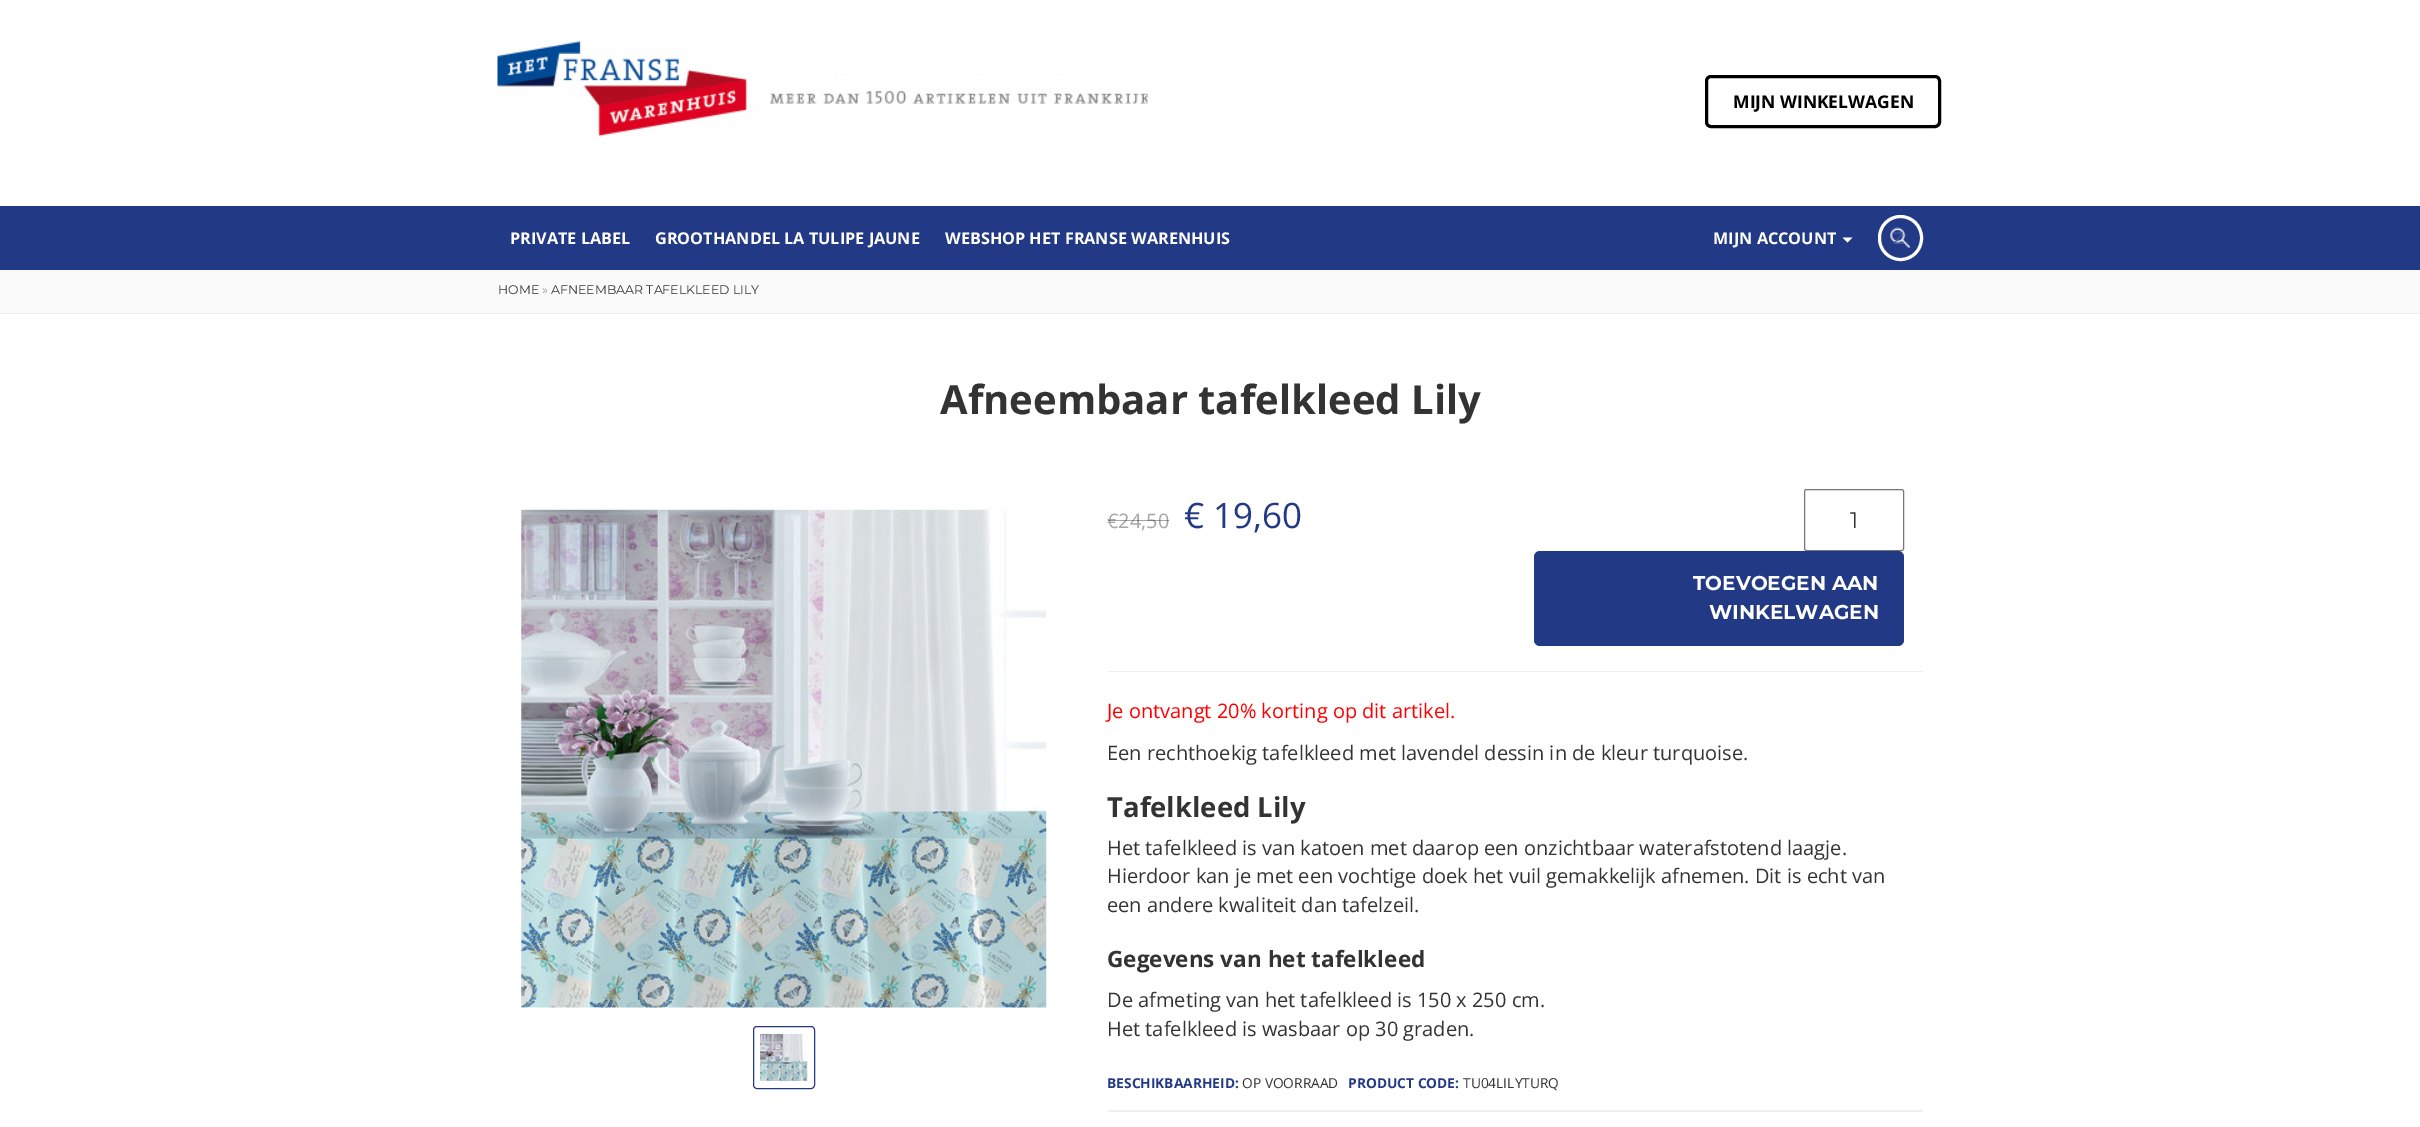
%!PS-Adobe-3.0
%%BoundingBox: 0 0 2420 1127
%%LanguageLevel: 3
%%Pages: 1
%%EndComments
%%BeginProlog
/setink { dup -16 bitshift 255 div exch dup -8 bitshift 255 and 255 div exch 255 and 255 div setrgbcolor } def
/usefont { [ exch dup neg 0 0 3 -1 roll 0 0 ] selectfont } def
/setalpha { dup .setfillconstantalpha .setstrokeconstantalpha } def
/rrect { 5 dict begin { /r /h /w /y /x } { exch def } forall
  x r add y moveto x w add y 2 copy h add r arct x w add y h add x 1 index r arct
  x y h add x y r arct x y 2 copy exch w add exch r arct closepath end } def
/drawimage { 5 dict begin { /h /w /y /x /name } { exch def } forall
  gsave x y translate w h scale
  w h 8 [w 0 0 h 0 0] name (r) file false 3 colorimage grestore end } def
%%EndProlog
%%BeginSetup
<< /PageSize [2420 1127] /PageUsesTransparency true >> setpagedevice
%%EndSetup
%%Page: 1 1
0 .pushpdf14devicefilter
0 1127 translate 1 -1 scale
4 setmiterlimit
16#FFFFFF setink
0 0 2420 1127 rectfill
(img1.raw) 497 41 651 96 drawimage
16#000000 setink
3 setlinewidth
1706.5 76.5 233 50 4.5 rrect stroke
/OpenSans-Bold 17.5 usefont
1733 108 moveto (MIJN WINKELWAGEN) show
16#223985 setink
0 206 2420 64 rectfill
/OpenSans-Bold 16.25 usefont
16#FFFFFF setink
[
    [(PRIVATE LABEL) 510 244]
    [(GROOTHANDEL LA TULIPE JAUNE) 655 244]
    [(WEBSHOP HET FRANSE WARENHUIS) 945 244]
    [(MIJN ACCOUNT) 1713 244]
] { aload pop moveto show } forall
1842.5 237.5 moveto 1852.5 237.5 lineto 1847.5 242.5 lineto closepath fill
(img2.raw) 1890 227 20 21 drawimage
1879.5 216.5 42 43 21 rrect stroke
/Montserrat-Regular 16.25 usefont
16#465999 setink
1893 244 moveto (Z) show
16#FAFAFA setink
0 270 2420 43 rectfill
16#EFEFEF setink
0 313 2420 1 rectfill
/Montserrat-Regular 12.5 usefont
16#333333 setink
498 294 moveto (HOME) show
16#9A9A9A setink
542 294 moveto (») show
16#333333 setink
551 294 moveto (AFNEEMBAAR TAFELKLEED LILY) show
/OpenSans-Bold 40 usefont
940 414 moveto (Afneembaar tafelkleed Lily) show
(img3.raw) 521 507 526 501 drawimage
16#223985 setink
1 setlinewidth
753.5 1026.5 61 62 3.5 rrect stroke
(img4.raw) 760 1033 48 49 drawimage
16#EFEFEF setink
1108 671 815 1 rectfill
/OpenSans-Regular 20 usefont
16#A6A6A6 setink
1107 528 moveto (€24,50) show
0.35 setalpha
16#000000 setink
1108 520 61 1 rectfill
/OpenSans-Regular 35 usefont
1 setalpha
16#223985 setink
1184 528 moveto (€ 19,60) show
16#767676 setink
1804.5 489.5 99 61 2 rrect stroke
/Montserrat-Regular 22.5 usefont
16#333333 setink
1850 528 moveto (1) show
16#223985 setink
1534 551 370 95 6 rrect fill
/Montserrat-Bold 20 usefont
16#FFFFFF setink
1693 590 moveto (TOEVOEGEN AAN) show
1709 619 moveto (WINKELWAGEN) show
/OpenSans-Regular 20 usefont
16#FF0000 setink
1107 718 moveto (Je ontvangt 20% korting op dit artikel.) show
16#333333 setink
1107 760 moveto (Een rechthoekig tafelkleed met lavendel dessin in de kleur turquoise.) show
/OpenSans-Bold 27.5 usefont
1107 817 moveto (Tafelkleed Lily) show
/OpenSans-Regular 20 usefont
[
    [(Het tafelkleed is van katoen met daarop een onzichtbaar waterafstotend laagje.) 1107 855]
    [(Hierdoor kan je met een vochtige doek het vuil gemakkelijk afnemen. Dit is echt van) 1107 883]
    [(een andere kwaliteit dan tafelzeil.) 1107 912]
] { aload pop moveto show } forall
/OpenSans-Bold 22.5 usefont
1107 967 moveto (Gegevens van het tafelkleed) show
/OpenSans-Regular 20 usefont
1107 1007 moveto (De afmeting van het tafelkleed is 150 x 250 cm.) show
1107 1036 moveto (Het tafelkleed is wasbaar op 30 graden.) show
16#EFEFEF setink
1108 1110 815 2 rectfill
/OpenSans-Bold 13.75 usefont
16#223985 setink
1107 1088 moveto (BESCHIKBAARHEID:) show
/OpenSans-Regular 13.75 usefont
16#333333 setink
1242 1088 moveto (OP VOORRAAD) show
/OpenSans-Bold 13.75 usefont
16#223985 setink
1348 1088 moveto (PRODUCT CODE:) show
/OpenSans-Regular 13.75 usefont
16#333333 setink
1463 1088 moveto (TU04LILYTURQ) show
.poppdf14devicefilter showpage
%%EOF
